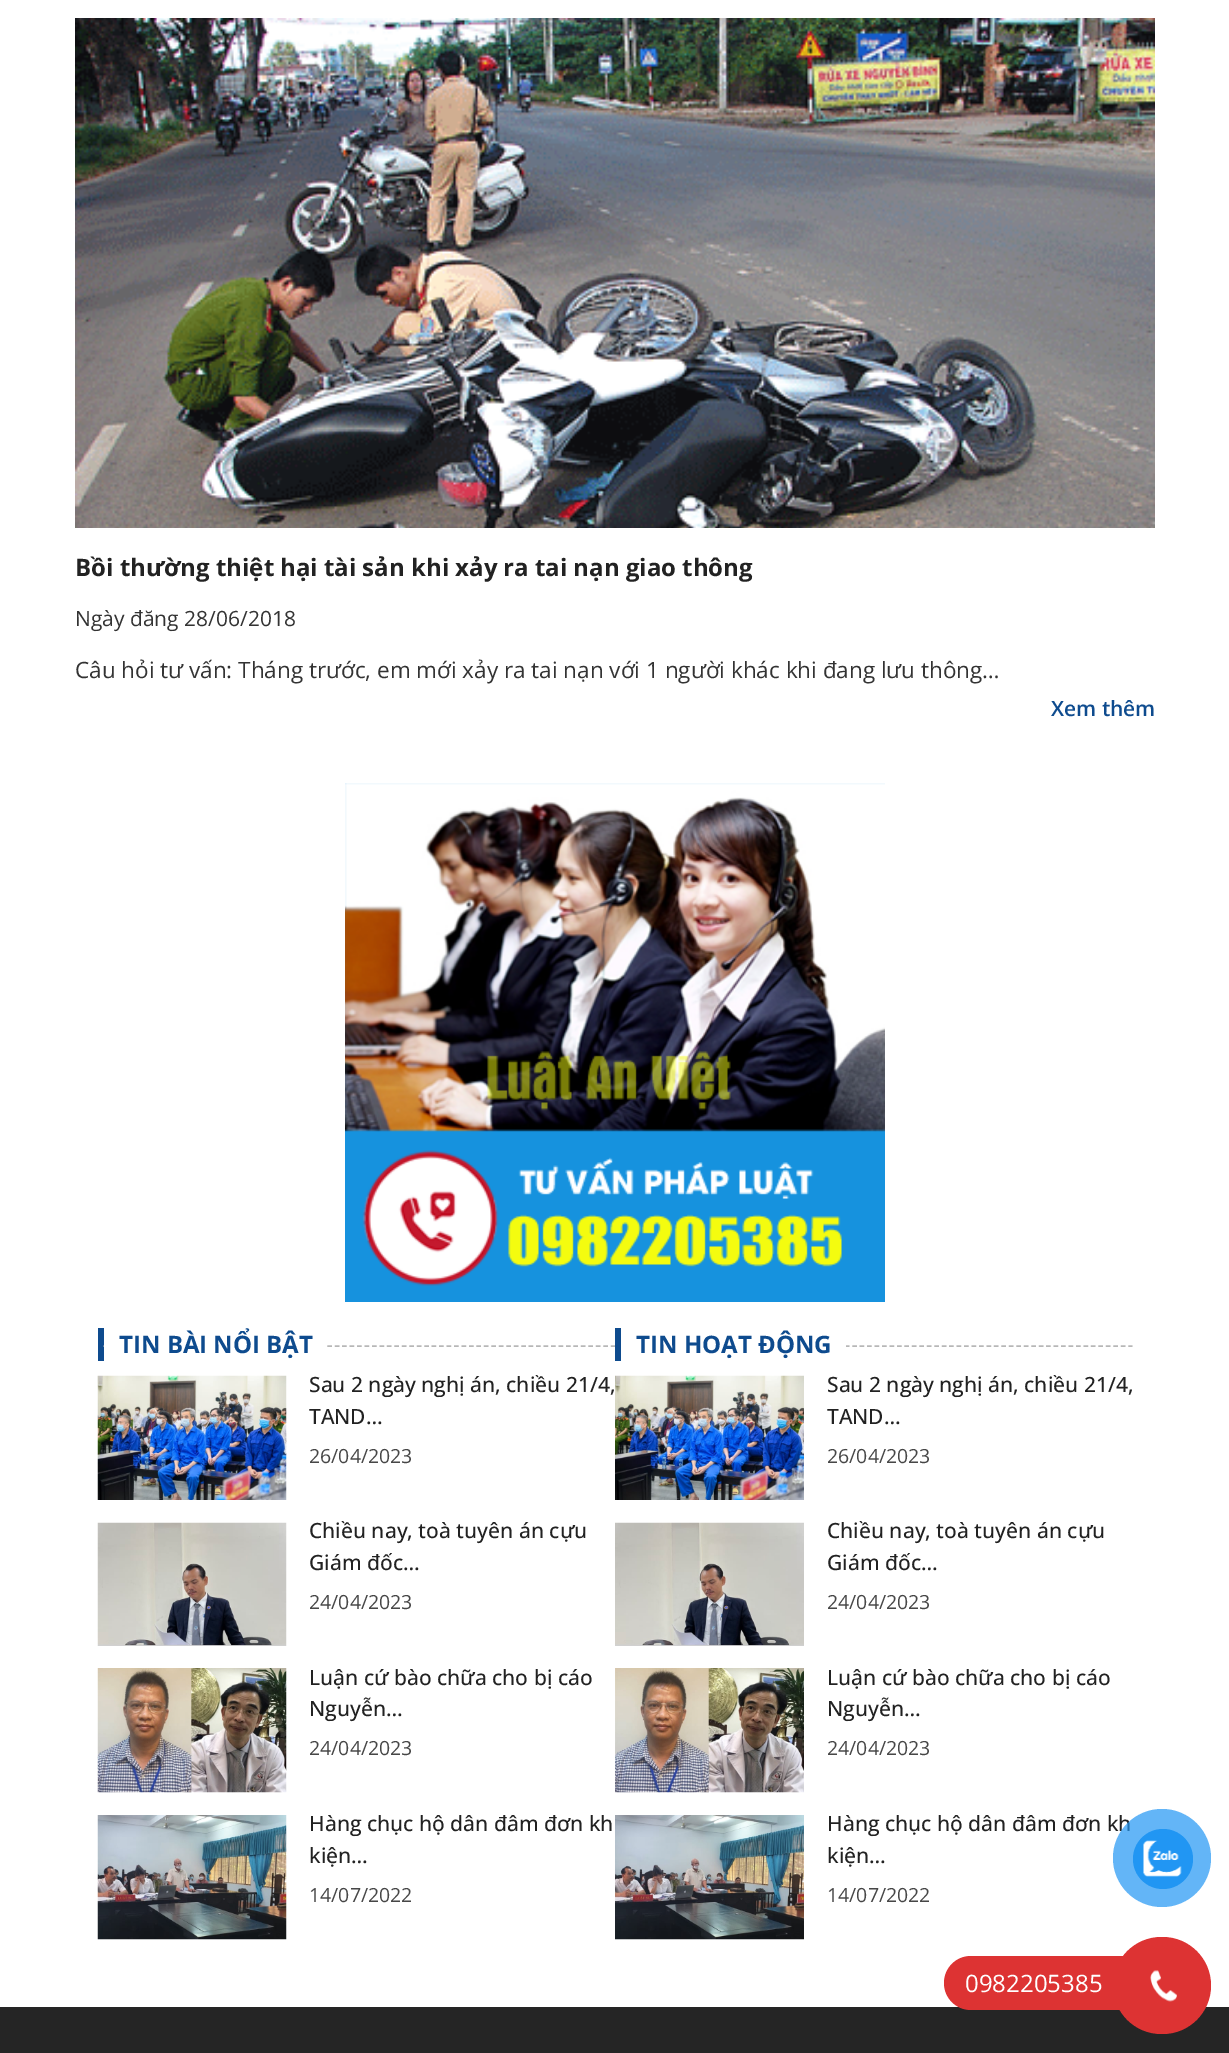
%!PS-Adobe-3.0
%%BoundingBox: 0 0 1229 2053
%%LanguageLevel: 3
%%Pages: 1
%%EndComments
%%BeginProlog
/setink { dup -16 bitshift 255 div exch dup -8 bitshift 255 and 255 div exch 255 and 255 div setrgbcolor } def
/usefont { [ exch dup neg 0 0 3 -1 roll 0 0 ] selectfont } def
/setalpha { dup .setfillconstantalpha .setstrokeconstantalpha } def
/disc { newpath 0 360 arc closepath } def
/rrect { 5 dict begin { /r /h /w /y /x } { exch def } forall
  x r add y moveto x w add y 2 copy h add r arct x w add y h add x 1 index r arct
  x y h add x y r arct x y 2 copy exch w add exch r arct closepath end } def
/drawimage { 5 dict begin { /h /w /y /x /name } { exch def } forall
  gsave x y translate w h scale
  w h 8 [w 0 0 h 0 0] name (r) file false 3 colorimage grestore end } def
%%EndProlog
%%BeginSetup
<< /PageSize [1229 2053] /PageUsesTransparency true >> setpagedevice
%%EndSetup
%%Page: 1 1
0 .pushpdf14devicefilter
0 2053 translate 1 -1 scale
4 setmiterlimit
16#FFFFFF setink
0 0 1229 2053 rectfill
(img1.raw) 75 18 1080 510 drawimage
/OpenSans-Bold 24 usefont
16#222222 setink
75 576 moveto (Bồi thường thiệt hại tài sản khi xảy ra tai nạn giao thông) show
/OpenSans-Regular 21 usefont
16#333333 setink
75 626 moveto (Ngày đăng 28/06/2018) show
/OpenSans-Regular 22.5 usefont
75 678 moveto (Câu hỏi tư vấn: Tháng trước, em mới xảy ra tai nạn với 1 người khác khi đang lưu thông…) show
/OpenSans-SemiBold 21 usefont
16#0E4B8E setink
1051 716 moveto (Xem thêm) show
(img2.raw) 345 783 540 519 drawimage
98 1328 6 33 rectfill
16#B7B7B7 setink
1.5 setlinewidth
[4.5 2.96] 0 setdash
103.5 1346 moveto 615 1346 lineto stroke
16#FFFFFF setink
104 1345 221 2 rectfill
/OpenSans-Bold 24 usefont
16#0E4B8E setink
119 1353 moveto (TIN BÀI NỔI BẬT) show
(img3.raw) 97 1375 190 125 drawimage
/OpenSans-Medium 21 usefont
16#222222 setink
309 1392 moveto (Sau 2 ngày nghị án, chiều 21/4,) show
309 1424 moveto (TAND…) show
/OpenSans-Regular 19.5 usefont
16#474747 setink
309 1463 moveto (26/04/2023) show
(img4.raw) 97 1522 190 124 drawimage
/OpenSans-Medium 21 usefont
16#222222 setink
309 1538 moveto (Chiều nay, toà tuyên án cựu) show
309 1570 moveto (Giám đốc…) show
/OpenSans-Regular 19.5 usefont
16#474747 setink
309 1609 moveto (24/04/2023) show
(img5.raw) 97 1668 190 125 drawimage
/OpenSans-Medium 21 usefont
16#222222 setink
309 1685 moveto (Luận cứ bào chữa cho bị cáo) show
309 1716 moveto (Nguyễn…) show
/OpenSans-Regular 19.5 usefont
16#474747 setink
309 1755 moveto (24/04/2023) show
(img6.raw) 97 1815 190 125 drawimage
/OpenSans-Medium 21 usefont
16#222222 setink
309 1831 moveto (Hàng chục hộ dân đâm đơn kh) show
309 1863 moveto (kiện…) show
/OpenSans-Regular 19.5 usefont
16#474747 setink
309 1902 moveto (14/07/2022) show
16#0E4B8E setink
615 1328 6 33 rectfill
16#B7B7B7 setink
621 1346 moveto 1132.5 1346 lineto stroke
16#FFFFFF setink
621 1345 225 2 rectfill
/OpenSans-Bold 24 usefont
16#0E4B8E setink
636 1353 moveto (TIN HOẠT ĐỘNG) show
(img7.raw) 615 1375 189 125 drawimage
/OpenSans-Medium 21 usefont
16#222222 setink
827 1392 moveto (Sau 2 ngày nghị án, chiều 21/4,) show
827 1424 moveto (TAND…) show
/OpenSans-Regular 19.5 usefont
16#474747 setink
827 1463 moveto (26/04/2023) show
(img8.raw) 615 1522 189 124 drawimage
/OpenSans-Medium 21 usefont
16#222222 setink
827 1538 moveto (Chiều nay, toà tuyên án cựu) show
827 1570 moveto (Giám đốc…) show
/OpenSans-Regular 19.5 usefont
16#474747 setink
827 1609 moveto (24/04/2023) show
(img9.raw) 615 1668 189 125 drawimage
/OpenSans-Medium 21 usefont
16#222222 setink
827 1685 moveto (Luận cứ bào chữa cho bị cáo) show
827 1716 moveto (Nguyễn…) show
/OpenSans-Regular 19.5 usefont
16#474747 setink
827 1755 moveto (24/04/2023) show
(img10.raw) 615 1815 189 125 drawimage
/OpenSans-Medium 21 usefont
16#222222 setink
827 1831 moveto (Hàng chục hộ dân đâm đơn kh) show
827 1863 moveto (kiện…) show
/OpenSans-Regular 19.5 usefont
16#474747 setink
827 1902 moveto (14/07/2022) show
0.7 setalpha
16#2196F3 setink
1162 1858 49 disc fill
1 setalpha
1163 1859 30 disc fill
(img11.raw) 1143 1840 39 37 drawimage
16#252525 setink
0 2007 1229 46 rectfill
16#DD3333 setink
944 1956 241 54 27 rrect fill
/OpenSans-Regular 24 usefont
16#FFFFFF setink
965 1992 moveto (0982205385) show
16#DD3333 setink
1113 1937 98 97 48.5 rrect fill
(img12.raw) 1150 1970 27 32 drawimage
.poppdf14devicefilter showpage
%%EOF
